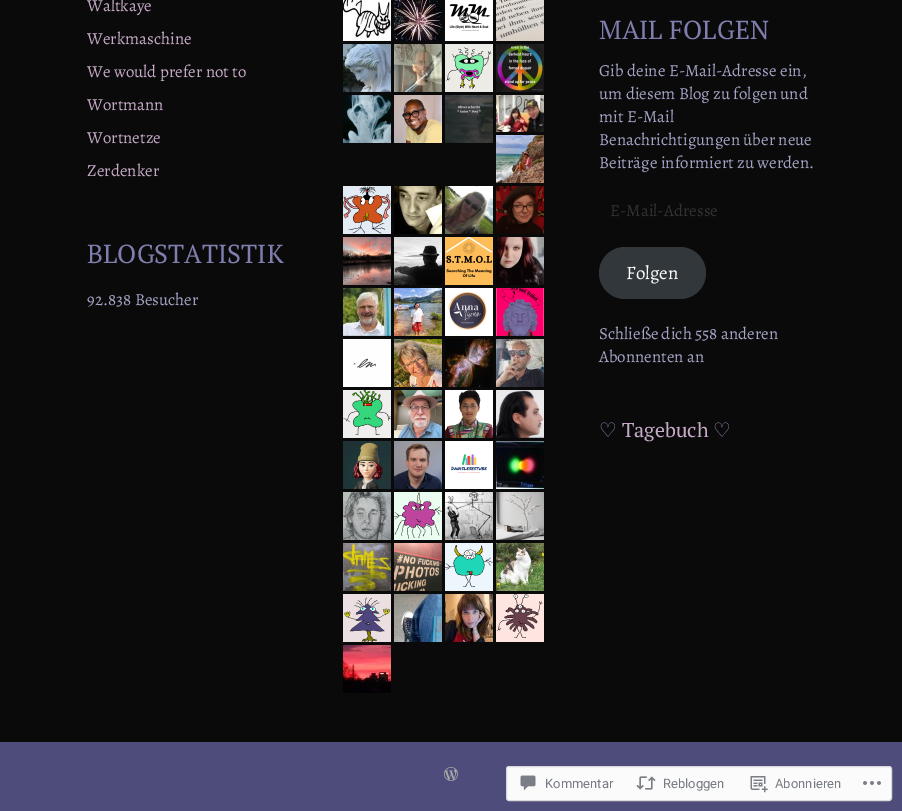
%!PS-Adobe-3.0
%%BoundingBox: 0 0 902 811
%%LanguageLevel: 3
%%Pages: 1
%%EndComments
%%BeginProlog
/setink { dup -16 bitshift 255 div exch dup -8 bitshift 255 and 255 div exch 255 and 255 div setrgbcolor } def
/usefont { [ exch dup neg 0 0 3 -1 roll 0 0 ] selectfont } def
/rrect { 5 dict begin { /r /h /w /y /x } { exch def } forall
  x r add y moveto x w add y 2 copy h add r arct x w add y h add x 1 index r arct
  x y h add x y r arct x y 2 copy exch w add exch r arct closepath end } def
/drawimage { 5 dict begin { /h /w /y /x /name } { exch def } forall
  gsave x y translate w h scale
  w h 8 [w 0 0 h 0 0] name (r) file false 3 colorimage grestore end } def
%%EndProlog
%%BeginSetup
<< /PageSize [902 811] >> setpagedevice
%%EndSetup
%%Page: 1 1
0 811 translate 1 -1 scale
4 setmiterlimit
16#0A0A0A setink
0 0 902 811 rectfill
/Alegreya-Regular 16.9 usefont
16#C7ABC8 setink
[
    [(Waltkaye) 87 11]
    [(Werkmaschine) 87 44]
    [(We would prefer not to) 87 77]
    [(Wortmann) 87 110]
    [(Wortnetze) 87 143]
    [(Zerdenker) 87 176]
] { aload pop moveto show } forall
/PTSerif-Regular 26 usefont
16#7F7EAE setink
87 263 moveto (BLOGSTATISTIK) show
/Alegreya-Regular 16.9 usefont
16#A4A4C6 setink
87 305 moveto (92.838 Besucher) show
(img1.raw) 343 0 48 41 drawimage
(img2.raw) 394 0 48 41 drawimage
(img3.raw) 445 0 48 41 drawimage
(img4.raw) 496 0 48 41 drawimage
(img5.raw) 343 44 48 48 drawimage
(img6.raw) 394 44 48 48 drawimage
(img7.raw) 445 44 48 48 drawimage
(img8.raw) 496 44 48 48 drawimage
(img9.raw) 343 95 48 48 drawimage
(img10.raw) 394 95 48 48 drawimage
(img11.raw) 445 95 48 48 drawimage
(img12.raw) 496 95 48 37 drawimage
(img13.raw) 496 135 48 48 drawimage
(img14.raw) 343 186 48 48 drawimage
(img15.raw) 394 186 48 48 drawimage
(img16.raw) 445 186 48 48 drawimage
(img17.raw) 496 186 48 48 drawimage
(img18.raw) 343 237 48 48 drawimage
(img19.raw) 394 237 48 48 drawimage
(img20.raw) 445 237 48 48 drawimage
(img21.raw) 496 237 48 48 drawimage
(img22.raw) 343 288 48 48 drawimage
(img23.raw) 394 288 48 48 drawimage
(img24.raw) 445 288 48 48 drawimage
(img25.raw) 496 288 48 48 drawimage
(img26.raw) 343 339 48 48 drawimage
(img27.raw) 394 339 48 48 drawimage
(img28.raw) 445 339 48 48 drawimage
(img29.raw) 496 339 48 48 drawimage
(img30.raw) 343 390 48 48 drawimage
(img31.raw) 394 390 48 48 drawimage
(img32.raw) 445 390 48 48 drawimage
(img33.raw) 496 390 48 48 drawimage
(img34.raw) 343 441 48 48 drawimage
(img35.raw) 394 441 48 48 drawimage
(img36.raw) 445 441 48 48 drawimage
(img37.raw) 496 441 48 48 drawimage
(img38.raw) 343 492 48 48 drawimage
(img39.raw) 394 492 48 48 drawimage
(img40.raw) 445 492 48 48 drawimage
(img41.raw) 496 492 48 48 drawimage
(img42.raw) 343 543 48 48 drawimage
(img43.raw) 394 543 48 48 drawimage
(img44.raw) 445 543 48 48 drawimage
(img45.raw) 496 543 48 48 drawimage
(img46.raw) 343 594 48 48 drawimage
(img47.raw) 394 594 48 48 drawimage
(img48.raw) 445 594 48 48 drawimage
(img49.raw) 496 594 48 48 drawimage
(img50.raw) 343 645 48 48 drawimage
/PTSerif-Regular 26 usefont
16#7F7EAE setink
599 39 moveto (MAIL FOLGEN) show
/Alegreya-Regular 16.9 usefont
16#A4A4C6 setink
[
    [(Gib deine E-Mail-Adresse ein,) 599 76]
    [(um diesem Blog zu folgen und) 599 99]
    [(mit E-Mail) 599 122]
    [(Benachrichtigungen über neue) 599 145]
    [(Beiträge informiert zu werden.) 599 168]
] { aload pop moveto show } forall
16#333333 setink
610 216 moveto (E-Mail-Adresse) show
16#32373C setink
599 247 107 52 26 rrect fill
/Alegreya-Regular 19 usefont
16#FFFFFF setink
626 279 moveto (Folgen) show
/Alegreya-Regular 16.9 usefont
16#A4A4C6 setink
599 339 moveto (Schließe dich 558 anderen) show
599 362 moveto (Abonnenten an) show
/DejaVuSans-Regular 20 usefont
16#7F7EAE setink
599 437 moveto (♡) show
/PTSerif-Regular 20 usefont
16#C7ABC8 setink
622 437 moveto (Tagebuch) show
/DejaVuSans-Regular 20 usefont
16#7F7EAE setink
713 437 moveto (♡) show
16#4E4C7A setink
0 742 902 69 rectfill
(img51.raw) 444 767 14 14 drawimage
16#FBFBFC setink
506.5 766.5 385 34 2.5 rrect gsave fill grestore
16#D9D9DC setink
stroke
(img52.raw) 520 775 16 16 drawimage
/Roboto-Regular 13 usefont
16#777B82 setink
545 788 moveto (Kommentar) show
(img53.raw) 636 776 20 14 drawimage
663 788 moveto (Rebloggen) show
(img54.raw) 750 776 18 17 drawimage
775 788 moveto (Abonnieren) show
(img55.raw) 863 781 18 4 drawimage
showpage
%%EOF
